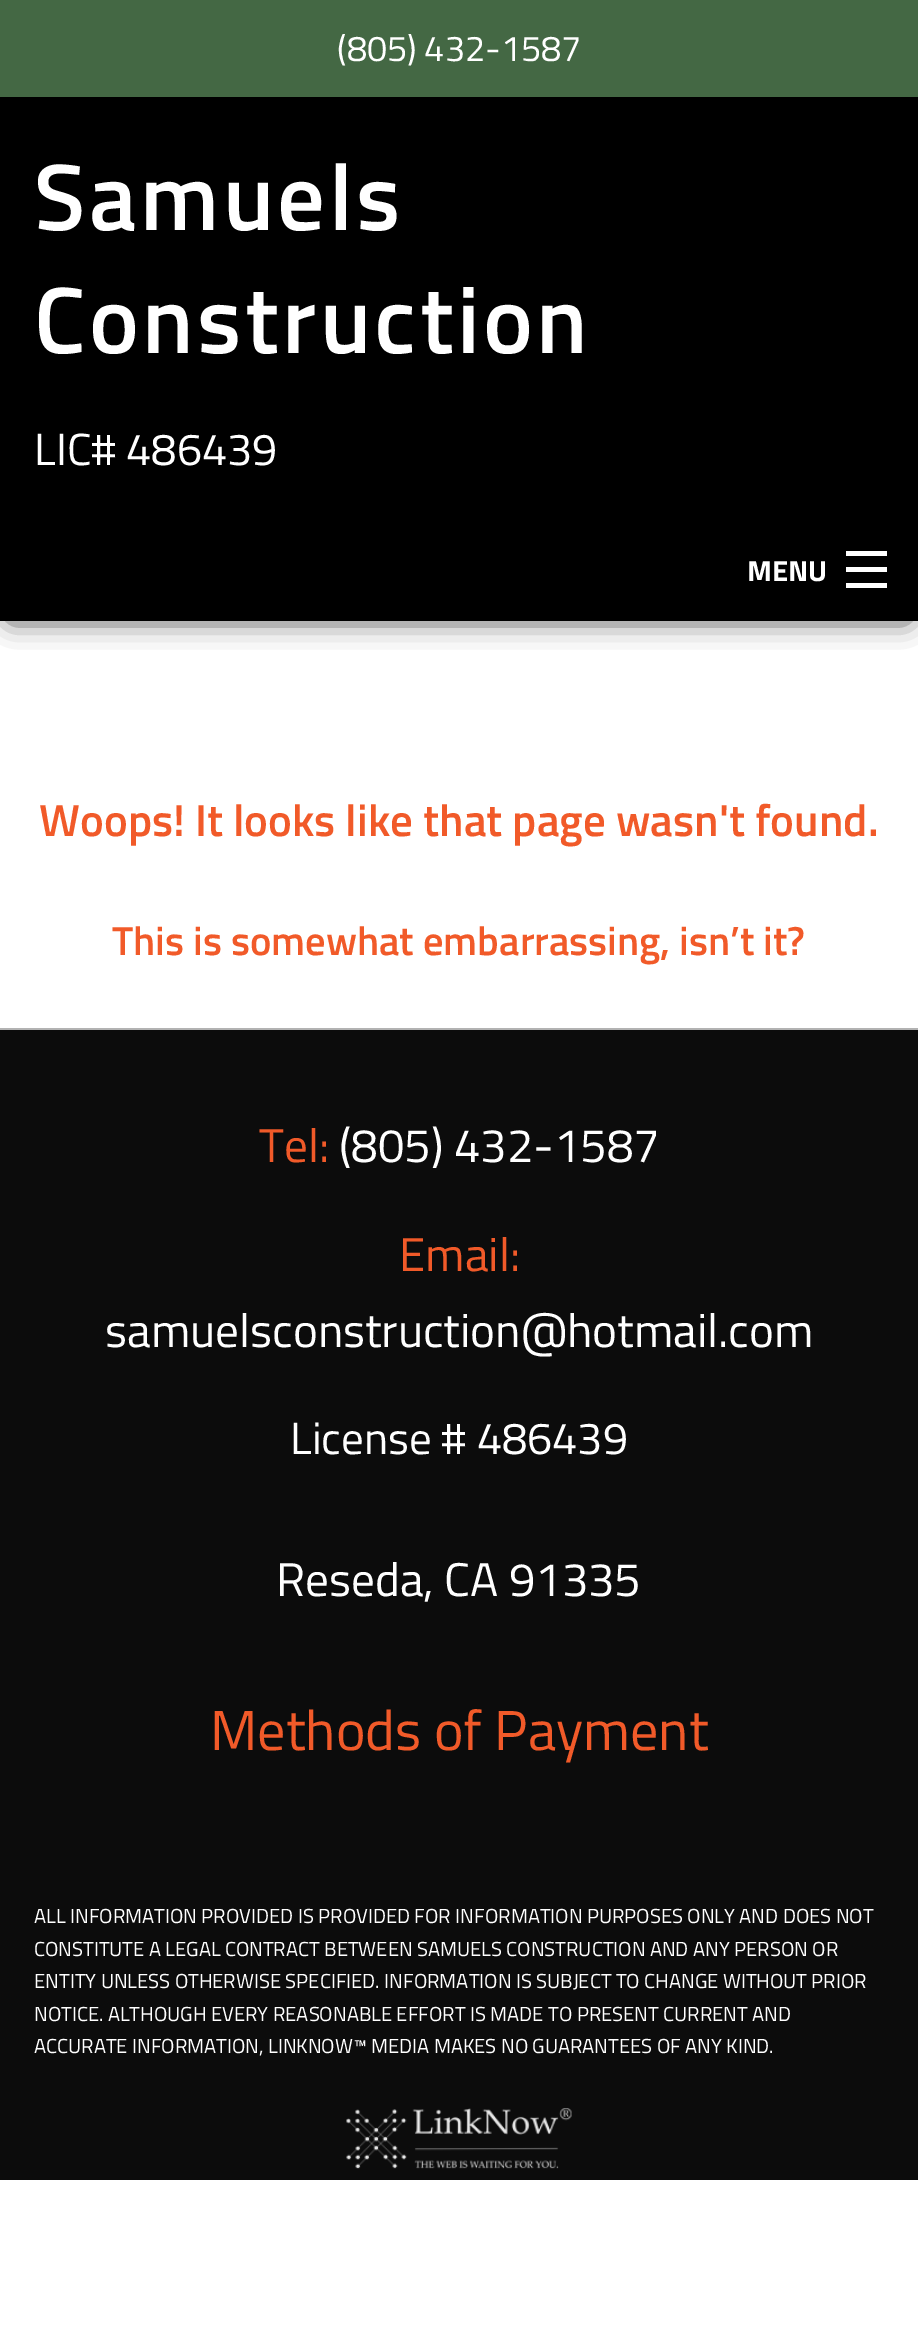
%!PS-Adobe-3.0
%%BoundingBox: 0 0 918 2337
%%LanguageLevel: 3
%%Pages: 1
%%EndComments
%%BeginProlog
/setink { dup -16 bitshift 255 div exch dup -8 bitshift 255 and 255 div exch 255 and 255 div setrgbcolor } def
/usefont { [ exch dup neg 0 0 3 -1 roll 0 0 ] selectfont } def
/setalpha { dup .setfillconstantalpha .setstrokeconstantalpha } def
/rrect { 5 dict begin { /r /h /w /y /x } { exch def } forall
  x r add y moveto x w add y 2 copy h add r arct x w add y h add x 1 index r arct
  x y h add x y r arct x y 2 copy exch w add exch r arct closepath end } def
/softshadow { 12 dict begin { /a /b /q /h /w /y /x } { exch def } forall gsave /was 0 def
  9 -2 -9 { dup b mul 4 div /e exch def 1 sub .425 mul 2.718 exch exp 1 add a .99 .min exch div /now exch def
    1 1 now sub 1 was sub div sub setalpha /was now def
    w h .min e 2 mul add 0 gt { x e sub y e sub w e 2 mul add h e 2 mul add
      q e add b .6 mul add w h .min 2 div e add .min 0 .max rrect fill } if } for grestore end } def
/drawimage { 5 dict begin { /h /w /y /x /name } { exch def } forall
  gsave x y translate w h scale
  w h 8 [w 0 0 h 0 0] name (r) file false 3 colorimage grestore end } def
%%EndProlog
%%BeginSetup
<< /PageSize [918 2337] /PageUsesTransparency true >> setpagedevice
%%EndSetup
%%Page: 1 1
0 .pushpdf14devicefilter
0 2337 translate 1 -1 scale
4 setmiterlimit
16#FFFFFF setink
0 0 918 2337 rectfill
16#000000 setink
11 115 896 502 0 14.5 1 softshadow
0 97 918 524 rectfill
16#446844 setink
0 0 918 97 rectfill
/TitilliumWeb-Regular 36 usefont
16#FFFFFF setink
337 61 moveto (\(805\) 432-1587) show
/TitilliumWeb-Bold 29 usefont
747 581 moveto (MENU) show
[
    [846 583 41 5 16#FFFFFF]
    [846 567 41 5 16#FFFFFF]
    [846 551 41 5 16#FFFFFF]
] { aload pop setink rectfill } forall
/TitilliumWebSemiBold-SemiBold 94.5 usefont
34 230 moveto 3.4 0 (Samuels) ashow
34 353 moveto 3.4 0 (Construction) ashow
/TitilliumWeb-Regular 45 usefont
34 465 moveto (LIC# 486439) show
/TitilliumWebSemiBold-SemiBold 45 usefont
16#F15A29 setink
39 836 moveto (Woops! It looks like that page wasn't found.) show
/TitilliumWebSemiBold-SemiBold 40.5 usefont
112 955 moveto (This is somewhat embarrassing, isn’t it?) show
16#0C0C0C setink
0 1030 918 1150 rectfill
16#B2B2B2 setink
0 1028 918 2 rectfill
/TitilliumWeb-Regular 47.25 usefont
16#F15A29 setink
259 1162 moveto (Tel:) show
16#FFFFFF setink
339 1162 moveto (\(805\) 432-1587) show
16#F15A29 setink
399 1271 moveto (Email:) show
16#FFFFFF setink
105 1347 moveto (samuelsconstruction@hotmail.com) show
/TitilliumWeb-Regular 45 usefont
290 1454 moveto (License # 486439) show
/TitilliumWeb-Regular 47.25 usefont
276 1596 moveto (Reseda, CA 91335) show
/TitilliumWeb-Regular 56.25 usefont
16#F15A29 setink
210 1750 moveto (Methods of Payment) show
/TitilliumWeb-Regular 20.25 usefont
16#FFFFFF setink
[
    [(ALL INFORMATION PROVIDED IS PROVIDED FOR INFORMATION PURPOSES ONLY AND DOES NOT) 34 1923]
    [(CONSTITUTE A LEGAL CONTRACT BETWEEN SAMUELS CONSTRUCTION AND ANY PERSON OR) 34 1956]
    [(ENTITY UNLESS OTHERWISE SPECIFIED. INFORMATION IS SUBJECT TO CHANGE WITHOUT PRIOR) 34 1988]
    [(NOTICE. ALTHOUGH EVERY REASONABLE EFFORT IS MADE TO PRESENT CURRENT AND) 34 2021]
    [(ACCURATE INFORMATION, LINKNOW™ MEDIA MAKES NO GUARANTEES OF ANY KIND.) 34 2053]
] { aload pop moveto show } forall
(img1.raw) 346 2108 226 61 drawimage
.poppdf14devicefilter showpage
%%EOF
